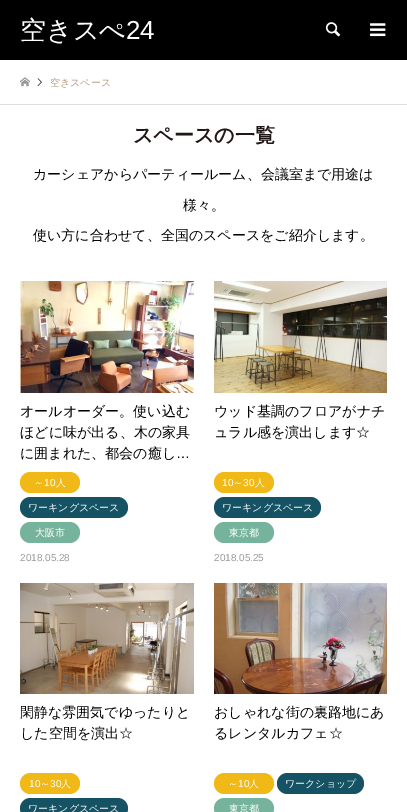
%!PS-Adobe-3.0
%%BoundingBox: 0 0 407 812
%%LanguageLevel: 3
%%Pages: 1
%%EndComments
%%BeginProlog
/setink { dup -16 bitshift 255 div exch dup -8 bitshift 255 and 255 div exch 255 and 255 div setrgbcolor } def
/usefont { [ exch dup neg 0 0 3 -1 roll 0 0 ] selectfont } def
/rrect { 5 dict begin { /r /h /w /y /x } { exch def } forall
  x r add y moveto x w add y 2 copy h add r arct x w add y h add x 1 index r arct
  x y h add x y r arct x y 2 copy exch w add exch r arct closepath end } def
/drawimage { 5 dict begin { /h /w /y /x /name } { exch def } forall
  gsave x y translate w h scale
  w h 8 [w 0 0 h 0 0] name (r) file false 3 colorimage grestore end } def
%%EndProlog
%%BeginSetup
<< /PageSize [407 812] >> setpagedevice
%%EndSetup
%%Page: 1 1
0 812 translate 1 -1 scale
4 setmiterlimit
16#FFFFFF setink
0 0 407 812 rectfill
16#000000 setink
0 0 407 60 rectfill
/WenQuanYiZenHei-Medium 26 usefont
16#FFFFFF setink
20 39 moveto (空きスぺ) show
/LiberationSans-Regular 26 usefont
126 39 moveto (24) show
(img1.raw) 325 22 16 15 drawimage
(img2.raw) 370 23 16 14 drawimage
16#DDDDDD setink
0 104 407 1 rectfill
(img3.raw) 20 77 10 10 drawimage
(img4.raw) 37 78 5 8 drawimage
/WenQuanYiZenHei-Medium 10 usefont
16#B69E84 setink
50 86 moveto (空きスペース) show
/WenQuanYiZenHei-Bold 20 usefont
16#211616 setink
133 142 moveto (スペースの一覧) show
/WenQuanYiZenHei-Medium 14 usefont
16#000000 setink
[
    [(カーシェアからパーティールーム、会議室まで用途は) 33 179]
    [(様々。) 183 210]
    [(使い方に合わせて、全国のスペースをご紹介します。) 33 240]
] { aload pop moveto show } forall
(img5.raw) 20 281 174 112 drawimage
[
    [(オールオーダー。使い込む) 20 416]
    [(ほどに味が出る、木の家具) 20 437]
    [(に囲まれた、都会の癒し) 20 458]
] { aload pop moveto show } forall
/LiberationSans-Regular 14 usefont
176 458 moveto (…) show
16#F0B917 setink
20 472 60 21 10.5 rrect fill
/WenQuanYiZenHei-Medium 10 usefont
16#FFFFFF setink
34 486 moveto (～) show
/LiberationSans-Regular 10 usefont
44 486 moveto (10) show
/WenQuanYiZenHei-Medium 10 usefont
56 486 moveto (人) show
16#155263 setink
20 497 108 21 10.5 rrect fill
16#FFFFFF setink
28 511 moveto (ワーキングスペース) show
16#76B39D setink
20 522 60 21 10.5 rrect fill
16#FFFFFF setink
35 536 moveto (大阪市) show
/LiberationSans-Regular 10 usefont
16#999999 setink
20 561 moveto (2018.05.28) show
(img6.raw) 214 281 173 112 drawimage
/WenQuanYiZenHei-Medium 14 usefont
16#000000 setink
214 416 moveto (ウッド基調のフロアがナチ) show
214 437 moveto (ュラル感を演出します☆) show
16#F0B917 setink
214 472 60 21 10.5 rrect fill
/LiberationSans-Regular 10 usefont
16#FFFFFF setink
222 486 moveto (10) show
/WenQuanYiZenHei-Medium 10 usefont
233 486 moveto (～) show
/LiberationSans-Regular 10 usefont
243 486 moveto (30) show
/WenQuanYiZenHei-Medium 10 usefont
255 486 moveto (人) show
16#155263 setink
214 497 107 21 10.5 rrect fill
16#FFFFFF setink
222 511 moveto (ワーキングスペース) show
16#76B39D setink
214 522 60 21 10.5 rrect fill
16#FFFFFF setink
229 536 moveto (東京都) show
/LiberationSans-Regular 10 usefont
16#999999 setink
214 561 moveto (2018.05.25) show
(img7.raw) 20 583 174 111 drawimage
/WenQuanYiZenHei-Medium 14 usefont
16#000000 setink
20 717 moveto (閑静な雰囲気でゆったりと) show
20 738 moveto (した空間を演出☆) show
16#F0B917 setink
20 773 60 21 10.5 rrect fill
/LiberationSans-Regular 10 usefont
16#FFFFFF setink
29 787 moveto (10) show
/WenQuanYiZenHei-Medium 10 usefont
40 787 moveto (～) show
/LiberationSans-Regular 10 usefont
50 787 moveto (30) show
/WenQuanYiZenHei-Medium 10 usefont
61 787 moveto (人) show
16#155263 setink
20 798 108 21 10.5 rrect fill
16#FFFFFF setink
28 812 moveto (ワーキングスペース) show
(img8.raw) 214 583 173 111 drawimage
/WenQuanYiZenHei-Medium 14 usefont
16#000000 setink
214 717 moveto (おしゃれな街の裏路地にあ) show
214 738 moveto (るレンタルカフェ☆) show
16#F0B917 setink
214 773 60 21 10.5 rrect fill
/WenQuanYiZenHei-Medium 10 usefont
16#FFFFFF setink
228 787 moveto (～) show
/LiberationSans-Regular 10 usefont
238 787 moveto (10) show
/WenQuanYiZenHei-Medium 10 usefont
249 787 moveto (人) show
16#155263 setink
277 773 87 21 10.5 rrect fill
16#FFFFFF setink
285 787 moveto (ワークショップ) show
16#76B39D setink
214 798 60 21 10.5 rrect fill
16#FFFFFF setink
229 812 moveto (東京都) show
showpage
%%EOF
